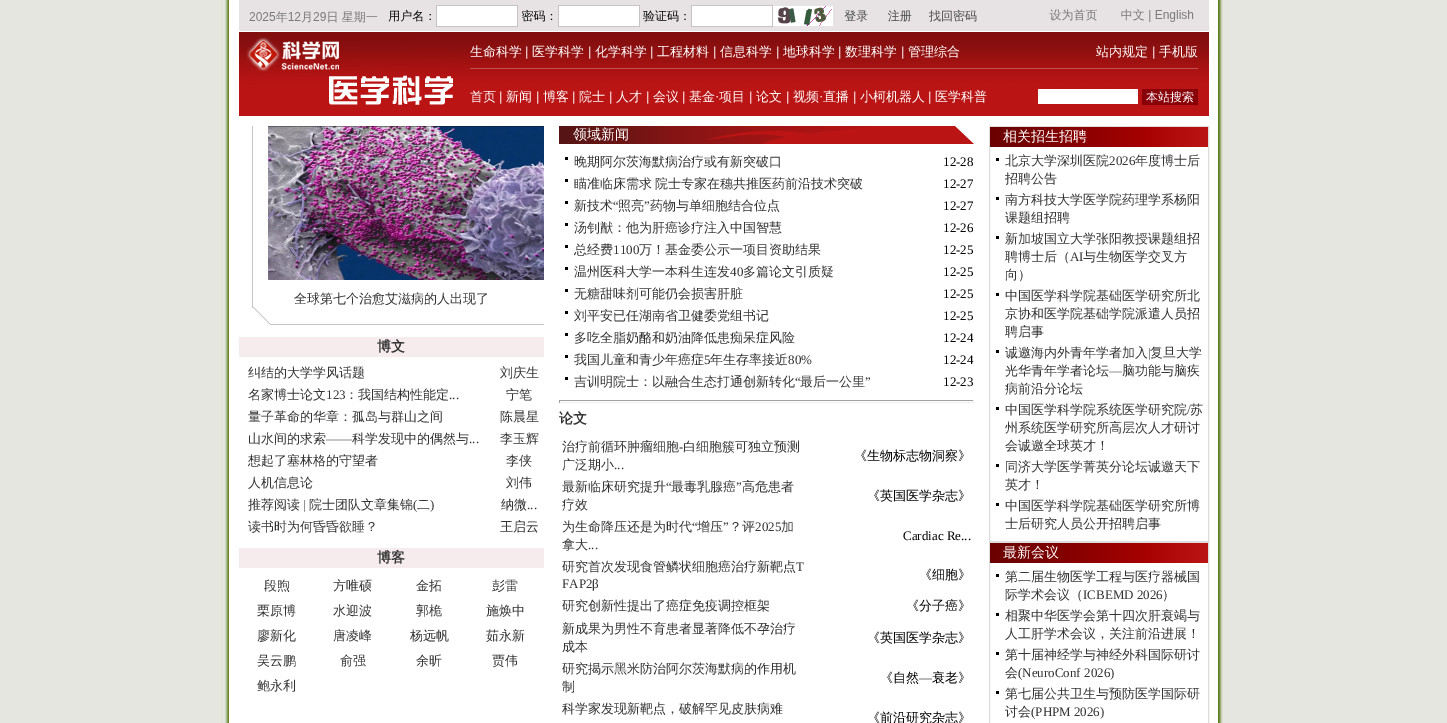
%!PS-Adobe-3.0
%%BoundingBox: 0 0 1447 723
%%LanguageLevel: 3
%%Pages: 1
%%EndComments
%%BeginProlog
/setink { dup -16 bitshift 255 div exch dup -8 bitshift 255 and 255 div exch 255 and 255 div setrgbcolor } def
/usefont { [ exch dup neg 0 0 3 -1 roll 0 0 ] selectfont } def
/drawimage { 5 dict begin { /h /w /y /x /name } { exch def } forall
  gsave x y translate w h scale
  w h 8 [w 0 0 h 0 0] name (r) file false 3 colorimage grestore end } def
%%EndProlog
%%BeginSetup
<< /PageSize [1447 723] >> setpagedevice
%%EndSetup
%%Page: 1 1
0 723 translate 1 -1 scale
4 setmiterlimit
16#E4E6DF setink
0 0 1447 723 rectfill
(img1.raw) 221 0 1005 723 drawimage
(img2.raw) 239 0 970 31 drawimage
(img3.raw) 239 32 970 84 drawimage
(img4.raw) 246 37 207 70 drawimage
16#BD5354 setink
470 68 728 1 rectfill
/WenQuanYiZenHei-Medium 13 usefont
16#FFFFFF setink
470 56 moveto (生命科学) show
/LiberationSans-Regular 13 usefont
525 56 moveto (|) show
/WenQuanYiZenHei-Medium 13 usefont
532 56 moveto (医学科学) show
/LiberationSans-Regular 13 usefont
588 56 moveto (|) show
/WenQuanYiZenHei-Medium 13 usefont
595 56 moveto (化学科学) show
/LiberationSans-Regular 13 usefont
650 56 moveto (|) show
/WenQuanYiZenHei-Medium 13 usefont
657 56 moveto (工程材料) show
/LiberationSans-Regular 13 usefont
713 56 moveto (|) show
/WenQuanYiZenHei-Medium 13 usefont
720 56 moveto (信息科学) show
/LiberationSans-Regular 13 usefont
776 56 moveto (|) show
/WenQuanYiZenHei-Medium 13 usefont
783 56 moveto (地球科学) show
/LiberationSans-Regular 13 usefont
838 56 moveto (|) show
/WenQuanYiZenHei-Medium 13 usefont
845 56 moveto (数理科学) show
/LiberationSans-Regular 13 usefont
901 56 moveto (|) show
/WenQuanYiZenHei-Medium 13 usefont
908 56 moveto (管理综合) show
1096 56 moveto (站内规定) show
/LiberationSans-Regular 13 usefont
1152 56 moveto (|) show
/WenQuanYiZenHei-Medium 13 usefont
1159 56 moveto (手机版) show
470 101 moveto (首页) show
/LiberationSans-Regular 13 usefont
499 101 moveto (|) show
/WenQuanYiZenHei-Medium 13 usefont
506 101 moveto (新闻) show
/LiberationSans-Regular 13 usefont
536 101 moveto (|) show
/WenQuanYiZenHei-Medium 13 usefont
543 101 moveto (博客) show
/LiberationSans-Regular 13 usefont
572 101 moveto (|) show
/WenQuanYiZenHei-Medium 13 usefont
579 101 moveto (院士) show
/LiberationSans-Regular 13 usefont
609 101 moveto (|) show
/WenQuanYiZenHei-Medium 13 usefont
616 101 moveto (人才) show
/LiberationSans-Regular 13 usefont
646 101 moveto (|) show
/WenQuanYiZenHei-Medium 13 usefont
653 101 moveto (会议) show
/LiberationSans-Regular 13 usefont
682 101 moveto (|) show
/WenQuanYiZenHei-Medium 13 usefont
689 101 moveto (基金) show
/LiberationSerif-Regular 13 usefont
715 101 moveto (·) show
/WenQuanYiZenHei-Medium 13 usefont
719 101 moveto (项目) show
/LiberationSans-Regular 13 usefont
749 101 moveto (|) show
/WenQuanYiZenHei-Medium 13 usefont
756 101 moveto (论文) show
/LiberationSans-Regular 13 usefont
786 101 moveto (|) show
/WenQuanYiZenHei-Medium 13 usefont
793 101 moveto (视频) show
/LiberationSerif-Regular 13 usefont
819 101 moveto (·) show
/WenQuanYiZenHei-Medium 13 usefont
823 101 moveto (直播) show
/LiberationSans-Regular 13 usefont
853 101 moveto (|) show
/WenQuanYiZenHei-Medium 13 usefont
860 101 moveto (小柯机器人) show
/LiberationSans-Regular 13 usefont
928 101 moveto (|) show
/WenQuanYiZenHei-Medium 13 usefont
935 101 moveto (医学科普) show
1038 89 100 15 rectfill
16#880008 setink
1142 89 56 16 rectfill
/WenQuanYiZenHei-Medium 12 usefont
16#FFFFFF setink
1146 101 moveto (本站搜索) show
(img5.raw) 252 126 292 199 drawimage
(img6.raw) 268 126 276 154 drawimage
/WenQuanYiZenHei-Medium 13 usefont
16#333333 setink
294 303 moveto (全球第七个治愈艾滋病的人出现了) show
16#F6ECED setink
239 337 305 20 rectfill
/WenQuanYiZenHei-Bold 14 usefont
16#333333 setink
377 351 moveto (博文) show
/WenQuanYiZenHei-Medium 13 usefont
[
    [(纠结的大学学风话题) 248 377]
    [(刘庆生) 500 377]
    [(名家博士论文) 248 399]
] { aload pop moveto show } forall
/LiberationSerif-Regular 13 usefont
326 399 moveto (123) show
/WenQuanYiZenHei-Medium 13 usefont
345 399 moveto (：我国结构性能定) show
/LiberationSerif-Regular 13 usefont
449 399 moveto (...) show
/WenQuanYiZenHei-Medium 13 usefont
[
    [(宁笔) 506 399]
    [(量子革命的华章：孤岛与群山之间) 248 421]
    [(陈晨星) 500 421]
    [(山水间的求索) 248 443]
] { aload pop moveto show } forall
/LiberationSerif-Regular 13 usefont
326 443 moveto (——) show
/WenQuanYiZenHei-Medium 13 usefont
352 443 moveto (科学发现中的偶然与) show
/LiberationSerif-Regular 13 usefont
469 443 moveto (...) show
/WenQuanYiZenHei-Medium 13 usefont
[
    [(李玉辉) 500 443]
    [(想起了塞林格的守望者) 248 465]
    [(李侠) 506 465]
    [(人机信息论) 248 487]
    [(刘伟) 506 487]
    [(推荐阅读) 248 509]
] { aload pop moveto show } forall
/LiberationSerif-Regular 13 usefont
303 509 moveto (|) show
/WenQuanYiZenHei-Medium 13 usefont
309 509 moveto (院士团队文章集锦) show
/LiberationSerif-Regular 13 usefont
413 509 moveto (\() show
/WenQuanYiZenHei-Medium 13 usefont
417 509 moveto (二) show
/LiberationSerif-Regular 13 usefont
430 509 moveto (\)) show
/WenQuanYiZenHei-Medium 13 usefont
501 509 moveto (纳微) show
/LiberationSerif-Regular 13 usefont
527 509 moveto (...) show
/WenQuanYiZenHei-Medium 13 usefont
248 531 moveto (读书时为何昏昏欲睡？) show
500 531 moveto (王启云) show
16#F6ECED setink
239 548 305 20 rectfill
/WenQuanYiZenHei-Bold 14 usefont
16#333333 setink
377 562 moveto (博客) show
/WenQuanYiZenHei-Medium 13 usefont
[
    [(段煦) 264 590]
    [(方唯硕) 333 590]
    [(金拓) 416 590]
    [(彭雷) 492 590]
    [(栗原博) 257 615]
    [(水迎波) 333 615]
    [(郭桅) 416 615]
    [(施焕中) 486 615]
    [(廖新化) 257 640]
    [(唐凌峰) 333 640]
    [(杨远帆) 410 640]
    [(茹永新) 486 640]
    [(吴云鹏) 257 665]
    [(俞强) 340 665]
    [(余昕) 416 665]
    [(贾伟) 492 665]
    [(鲍永利) 257 690]
] { aload pop moveto show } forall
(img7.raw) 559 126 415 18 drawimage
/WenQuanYiZenHei-Medium 14 usefont
16#FFFFFF setink
573 139 moveto (领域新闻) show
16#000000 setink
565 157 3 3 rectfill
/WenQuanYiZenHei-Medium 13 usefont
16#333333 setink
574 166 moveto (晚期阿尔茨海默病治疗或有新突破口) show
/LiberationSerif-Regular 13 usefont
16#000000 setink
943 166 moveto (12-28) show
565 179 3 3 rectfill
/WenQuanYiZenHei-Medium 13 usefont
16#333333 setink
574 188 moveto -1 0 32 (瞄准临床需求 院士专家在穗共推医药前沿技术突破) widthshow
/LiberationSerif-Regular 13 usefont
16#000000 setink
943 188 moveto (12-27) show
565 201 3 3 rectfill
/WenQuanYiZenHei-Medium 13 usefont
16#333333 setink
574 210 moveto (新技术) show
/LiberationSerif-Regular 13 usefont
613 210 moveto (“) show
/WenQuanYiZenHei-Medium 13 usefont
618 210 moveto (照亮) show
/LiberationSerif-Regular 13 usefont
644 210 moveto (”) show
/WenQuanYiZenHei-Medium 13 usefont
650 210 moveto (药物与单细胞结合位点) show
/LiberationSerif-Regular 13 usefont
16#000000 setink
943 210 moveto (12-27) show
565 223 3 3 rectfill
/WenQuanYiZenHei-Medium 13 usefont
16#333333 setink
574 232 moveto (汤钊猷：他为肝癌诊疗注入中国智慧) show
/LiberationSerif-Regular 13 usefont
16#000000 setink
943 232 moveto (12-26) show
565 245 3 3 rectfill
/WenQuanYiZenHei-Medium 13 usefont
16#333333 setink
574 254 moveto (总经费) show
/LiberationSerif-Regular 13 usefont
613 254 moveto (1100) show
/WenQuanYiZenHei-Medium 13 usefont
639 254 moveto (万！基金委公示一项目资助结果) show
/LiberationSerif-Regular 13 usefont
16#000000 setink
943 254 moveto (12-25) show
565 267 3 3 rectfill
/WenQuanYiZenHei-Medium 13 usefont
16#333333 setink
574 276 moveto (温州医科大学一本科生连发) show
/LiberationSerif-Regular 13 usefont
730 276 moveto (40) show
/WenQuanYiZenHei-Medium 13 usefont
743 276 moveto (多篇论文引质疑) show
/LiberationSerif-Regular 13 usefont
16#000000 setink
943 276 moveto (12-25) show
565 289 3 3 rectfill
/WenQuanYiZenHei-Medium 13 usefont
16#333333 setink
574 298 moveto (无糖甜味剂可能仍会损害肝脏) show
/LiberationSerif-Regular 13 usefont
16#000000 setink
943 298 moveto (12-25) show
565 311 3 3 rectfill
/WenQuanYiZenHei-Medium 13 usefont
16#333333 setink
574 320 moveto (刘平安已任湖南省卫健委党组书记) show
/LiberationSerif-Regular 13 usefont
16#000000 setink
943 320 moveto (12-25) show
565 333 3 3 rectfill
/WenQuanYiZenHei-Medium 13 usefont
16#333333 setink
574 342 moveto (多吃全脂奶酪和奶油降低患痴呆症风险) show
/LiberationSerif-Regular 13 usefont
16#000000 setink
943 342 moveto (12-24) show
565 355 3 3 rectfill
/WenQuanYiZenHei-Medium 13 usefont
16#333333 setink
574 364 moveto (我国儿童和青少年癌症) show
/LiberationSerif-Regular 13 usefont
704 364 moveto (5) show
/WenQuanYiZenHei-Medium 13 usefont
710 364 moveto (年生存率接近) show
/LiberationSerif-Regular 13 usefont
788 364 moveto (80%) show
16#000000 setink
943 364 moveto (12-24) show
565 377 3 3 rectfill
/WenQuanYiZenHei-Medium 13 usefont
16#333333 setink
574 386 moveto (吉训明院士：以融合生态打通创新转化) show
/LiberationSerif-Regular 13 usefont
795 386 moveto (“) show
/WenQuanYiZenHei-Medium 13 usefont
800 386 moveto (最后一公里) show
/LiberationSerif-Regular 13 usefont
865 386 moveto (”) show
16#000000 setink
943 386 moveto (12-23) show
[
    [559 400 415 1 16#9F9F9F]
    [973 400 1 3 16#EEEEEE]
    [559 402 415 1 16#EEEEEE]
    [559 400 1 3 16#9F9F9F]
] { aload pop setink rectfill } forall
/WenQuanYiZenHei-Bold 14 usefont
16#333333 setink
559 423 moveto (论文) show
/WenQuanYiZenHei-Medium 13 usefont
562 451 moveto (治疗前循环肿瘤细胞) show
/LiberationSerif-Regular 13 usefont
679 451 moveto (-) show
/WenQuanYiZenHei-Medium 13 usefont
683 451 moveto (白细胞簇可独立预测) show
562 469 moveto (广泛期小) show
/LiberationSerif-Regular 13 usefont
614 469 moveto (...) show
/WenQuanYiZenHei-Medium 13 usefont
16#000000 setink
854 460 moveto (《生物标志物洞察》) show
16#333333 setink
562 491 moveto (最新临床研究提升) show
/LiberationSerif-Regular 13 usefont
666 491 moveto (“) show
/WenQuanYiZenHei-Medium 13 usefont
671 491 moveto (最毒乳腺癌) show
/LiberationSerif-Regular 13 usefont
736 491 moveto (”) show
/WenQuanYiZenHei-Medium 13 usefont
742 491 moveto (高危患者) show
562 509 moveto (疗效) show
16#000000 setink
867 500 moveto (《英国医学杂志》) show
16#333333 setink
562 531 moveto (为生命降压还是为时代) show
/LiberationSerif-Regular 13 usefont
692 531 moveto (“) show
/WenQuanYiZenHei-Medium 13 usefont
697 531 moveto (增压) show
/LiberationSerif-Regular 13 usefont
723 531 moveto (”) show
/WenQuanYiZenHei-Medium 13 usefont
729 531 moveto (？评) show
/LiberationSerif-Regular 13 usefont
755 531 moveto (2025) show
/WenQuanYiZenHei-Medium 13 usefont
781 531 moveto (加) show
562 549 moveto (拿大) show
/LiberationSerif-Regular 13 usefont
588 549 moveto (...) show
16#000000 setink
903 540 moveto (Cardiac Re...) show
/WenQuanYiZenHei-Medium 13 usefont
16#333333 setink
562 571 moveto (研究首次发现食管鳞状细胞癌治疗新靶点) show
/LiberationSerif-Regular 13 usefont
796 571 moveto (T) show
562 588 moveto (FAP2β) show
/WenQuanYiZenHei-Medium 13 usefont
16#000000 setink
919 579 moveto (《细胞》) show
16#333333 setink
562 610 moveto (研究创新性提出了癌症免疫调控框架) show
16#000000 setink
906 610 moveto (《分子癌》) show
16#333333 setink
562 633 moveto (新成果为男性不育患者显著降低不孕治疗) show
562 651 moveto (成本) show
16#000000 setink
867 642 moveto (《英国医学杂志》) show
16#333333 setink
562 673 moveto (研究揭示黑米防治阿尔茨海默病的作用机) show
562 691 moveto (制) show
16#000000 setink
880 682 moveto (《自然) show
/LiberationSerif-Regular 13 usefont
919 682 moveto (—) show
/WenQuanYiZenHei-Medium 13 usefont
932 682 moveto (衰老》) show
16#333333 setink
562 713 moveto (科学家发现新靶点，破解罕见皮肤病难) show
16#000000 setink
867 722 moveto (《前沿研究杂志》) show
16#DDDDDD setink
989.5 126.5 219 415 rectstroke
(img8.raw) 990 127 218 20 drawimage
/WenQuanYiZenHei-Medium 14 usefont
16#FFFFFF setink
1003 141 moveto (相关招生招聘) show
16#000000 setink
996 158 3 3 rectfill
/WenQuanYiZenHei-Medium 13 usefont
16#333333 setink
1005 165 moveto (北京大学深圳医院) show
/LiberationSerif-Regular 13 usefont
1109 165 moveto (2026) show
/WenQuanYiZenHei-Medium 13 usefont
1135 165 moveto (年度博士后) show
1005 183 moveto (招聘公告) show
16#000000 setink
996 197 3 3 rectfill
16#333333 setink
1005 204 moveto (南方科技大学医学院药理学系杨阳) show
1005 222 moveto (课题组招聘) show
16#000000 setink
996 236 3 3 rectfill
16#333333 setink
1005 243 moveto (新加坡国立大学张阳教授课题组招) show
1005 261 moveto (聘博士后（) show
/LiberationSerif-Regular 13 usefont
1070 261 moveto (AI) show
/WenQuanYiZenHei-Medium 13 usefont
1083 261 moveto (与生物医学交叉方) show
1005 279 moveto (向）) show
16#000000 setink
996 293 3 3 rectfill
16#333333 setink
[
    [(中国医学科学院基础医学研究所北) 1005 300]
    [(京协和医学院基础学院派遣人员招) 1005 318]
    [(聘启事) 1005 336]
] { aload pop moveto show } forall
16#000000 setink
996 350 3 3 rectfill
16#333333 setink
1005 357 moveto (诚邀海内外青年学者加入) show
/LiberationSerif-Regular 13 usefont
1148 357 moveto (|) show
/WenQuanYiZenHei-Medium 13 usefont
1150 357 moveto (复旦大学) show
1005 375 moveto (光华青年学者论坛) show
/LiberationSerif-Regular 13 usefont
1109 375 moveto (—) show
/WenQuanYiZenHei-Medium 13 usefont
1122 375 moveto (脑功能与脑疾) show
1005 393 moveto (病前沿分论坛) show
16#000000 setink
996 407 3 3 rectfill
16#333333 setink
1005 414 moveto (中国医学科学院系统医学研究院) show
/LiberationSerif-Regular 13 usefont
1187 414 moveto (/) show
/WenQuanYiZenHei-Medium 13 usefont
[
    [(苏) 1190 414]
    [(州系统医学研究所高层次人才研讨) 1005 432]
    [(会诚邀全球英才！) 1005 450]
] { aload pop moveto show } forall
16#000000 setink
996 464 3 3 rectfill
16#333333 setink
1005 471 moveto (同济大学医学菁英分论坛诚邀天下) show
1005 489 moveto (英才！) show
16#000000 setink
996 503 3 3 rectfill
16#333333 setink
1005 510 moveto (中国医学科学院基础医学研究所博) show
1005 528 moveto (士后研究人员公开招聘启事) show
16#DDDDDD setink
989.5 542.5 219 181 rectstroke
(img8.raw) 990 543 218 20 drawimage
/WenQuanYiZenHei-Medium 14 usefont
16#FFFFFF setink
1003 557 moveto (最新会议) show
16#000000 setink
996 574 3 3 rectfill
/WenQuanYiZenHei-Medium 13 usefont
16#333333 setink
1005 581 moveto (第二届生物医学工程与医疗器械国) show
1005 599 moveto (际学术会议（) show
/LiberationSerif-Regular 13 usefont
1083 599 moveto (ICBEMD 2026) show
/WenQuanYiZenHei-Medium 13 usefont
1162 599 moveto (）) show
16#000000 setink
996 613 3 3 rectfill
16#333333 setink
1005 620 moveto (相聚中华医学会第十四次肝衰竭与) show
1005 638 moveto (人工肝学术会议，关注前沿进展！) show
16#000000 setink
996 652 3 3 rectfill
16#333333 setink
1005 659 moveto (第十届神经学与神经外科国际研讨) show
1005 677 moveto (会) show
/LiberationSerif-Regular 13 usefont
1018 677 moveto (\(NeuroConf 2026\)) show
16#000000 setink
996 691 3 3 rectfill
/WenQuanYiZenHei-Medium 13 usefont
16#333333 setink
1005 698 moveto (第七届公共卫生与预防医学国际研) show
1005 716 moveto (讨会) show
/LiberationSerif-Regular 13 usefont
1031 716 moveto (\(PHPM 2026\)) show
showpage
%%EOF
